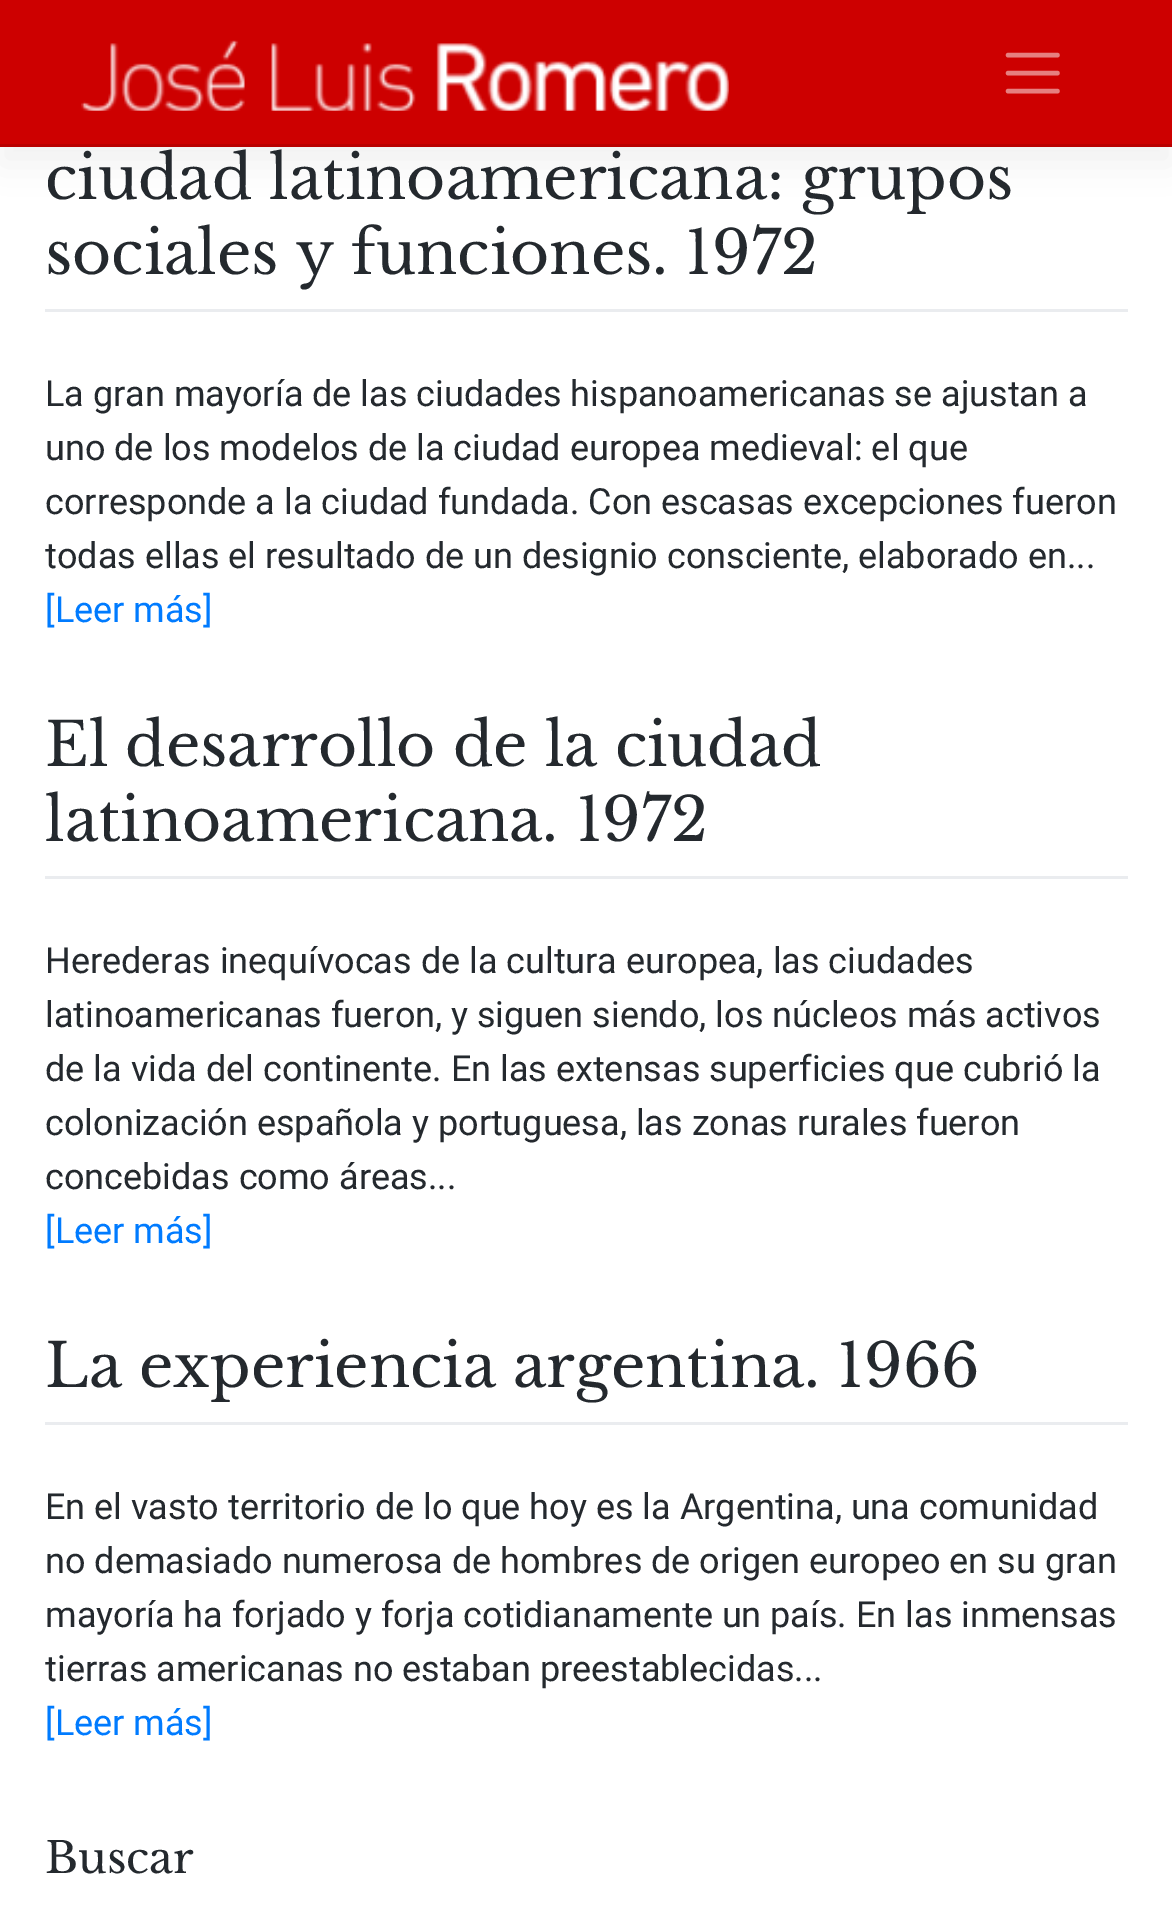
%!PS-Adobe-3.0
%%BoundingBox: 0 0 1172 1922
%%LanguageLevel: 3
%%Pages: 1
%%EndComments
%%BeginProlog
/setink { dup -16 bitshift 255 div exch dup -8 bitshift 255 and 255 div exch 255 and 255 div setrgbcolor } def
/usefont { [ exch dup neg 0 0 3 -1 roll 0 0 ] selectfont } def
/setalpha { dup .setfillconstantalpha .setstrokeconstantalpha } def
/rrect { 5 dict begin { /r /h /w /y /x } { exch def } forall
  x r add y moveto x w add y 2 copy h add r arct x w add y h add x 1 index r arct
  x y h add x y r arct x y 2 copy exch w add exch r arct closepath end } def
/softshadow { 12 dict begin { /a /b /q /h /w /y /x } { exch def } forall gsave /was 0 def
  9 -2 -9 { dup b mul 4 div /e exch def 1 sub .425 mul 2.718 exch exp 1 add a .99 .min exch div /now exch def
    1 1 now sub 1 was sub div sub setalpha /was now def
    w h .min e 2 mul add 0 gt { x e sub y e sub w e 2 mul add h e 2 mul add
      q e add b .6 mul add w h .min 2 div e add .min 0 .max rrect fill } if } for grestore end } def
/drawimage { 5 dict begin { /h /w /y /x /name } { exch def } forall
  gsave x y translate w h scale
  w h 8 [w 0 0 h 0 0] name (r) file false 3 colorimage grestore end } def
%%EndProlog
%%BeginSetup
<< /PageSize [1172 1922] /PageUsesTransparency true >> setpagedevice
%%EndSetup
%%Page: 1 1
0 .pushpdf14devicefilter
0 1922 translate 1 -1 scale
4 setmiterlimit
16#FFFFFF setink
0 0 1172 1922 rectfill
16#000000 setink
0 18 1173 147 0 18 0.05 softshadow
16#CD0000 setink
0 0 1172 144 rectfill
16#B90000 setink
0 144 1172 3 rectfill
(img1.raw) 81 40 648 71 drawimage
16#E68080 setink
4.5 setlinewidth
1 setlinecap
1008 55 moveto 1057.5 55 lineto 1008 73 moveto 1057.5 73 lineto 1008 91 moveto 1057.5 91 lineto stroke
16#EAECEF setink
45 309 1083 3 rectfill
/LibreBaskerville-Regular 60 usefont
16#24292E setink
45 199 moveto (ciudad latinoamericana: grupos) show
45 274 moveto (sociales y funciones. 1972) show
/Roboto-Regular 36 usefont
[
    [(La gran mayoría de las ciudades hispanoamericanas se ajustan a) 45 406]
    [(uno de los modelos de la ciudad europea medieval: el que) 45 460]
    [(corresponde a la ciudad fundada. Con escasas excepciones fueron) 45 514]
    [(todas ellas el resultado de un designio consciente, elaborado en...) 45 568]
] { aload pop moveto show } forall
16#007BFF setink
45 622 moveto ([Leer más]) show
16#EAECEF setink
45 876 1083 3 rectfill
/LibreBaskerville-Regular 60 usefont
16#24292E setink
45 766 moveto (El desarrollo de la ciudad) show
45 841 moveto (latinoamericana. 1972) show
/Roboto-Regular 36 usefont
[
    [(Herederas inequívocas de la cultura europea, las ciudades) 45 973]
    [(latinoamericanas fueron, y siguen siendo, los núcleos más activos) 45 1027]
    [(de la vida del continente. En las extensas superficies que cubrió la) 45 1081]
    [(colonización española y portuguesa, las zonas rurales fueron) 45 1135]
    [(concebidas como áreas...) 45 1189]
] { aload pop moveto show } forall
16#007BFF setink
45 1243 moveto ([Leer más]) show
16#EAECEF setink
45 1422 1083 3 rectfill
/LibreBaskerville-Regular 60 usefont
16#24292E setink
45 1387 moveto (La experiencia argentina. 1966) show
/Roboto-Regular 36 usefont
[
    [(En el vasto territorio de lo que hoy es la Argentina, una comunidad) 45 1519]
    [(no demasiado numerosa de hombres de origen europeo en su gran) 45 1573]
    [(mayoría ha forjado y forja cotidianamente un país. En las inmensas) 45 1627]
    [(tierras americanas no estaban preestablecidas...) 45 1681]
] { aload pop moveto show } forall
16#007BFF setink
45 1735 moveto ([Leer más]) show
/LibreBaskerville-Regular 43 usefont
16#24292E setink
45 1873 moveto (Buscar) show
.poppdf14devicefilter showpage
%%EOF
